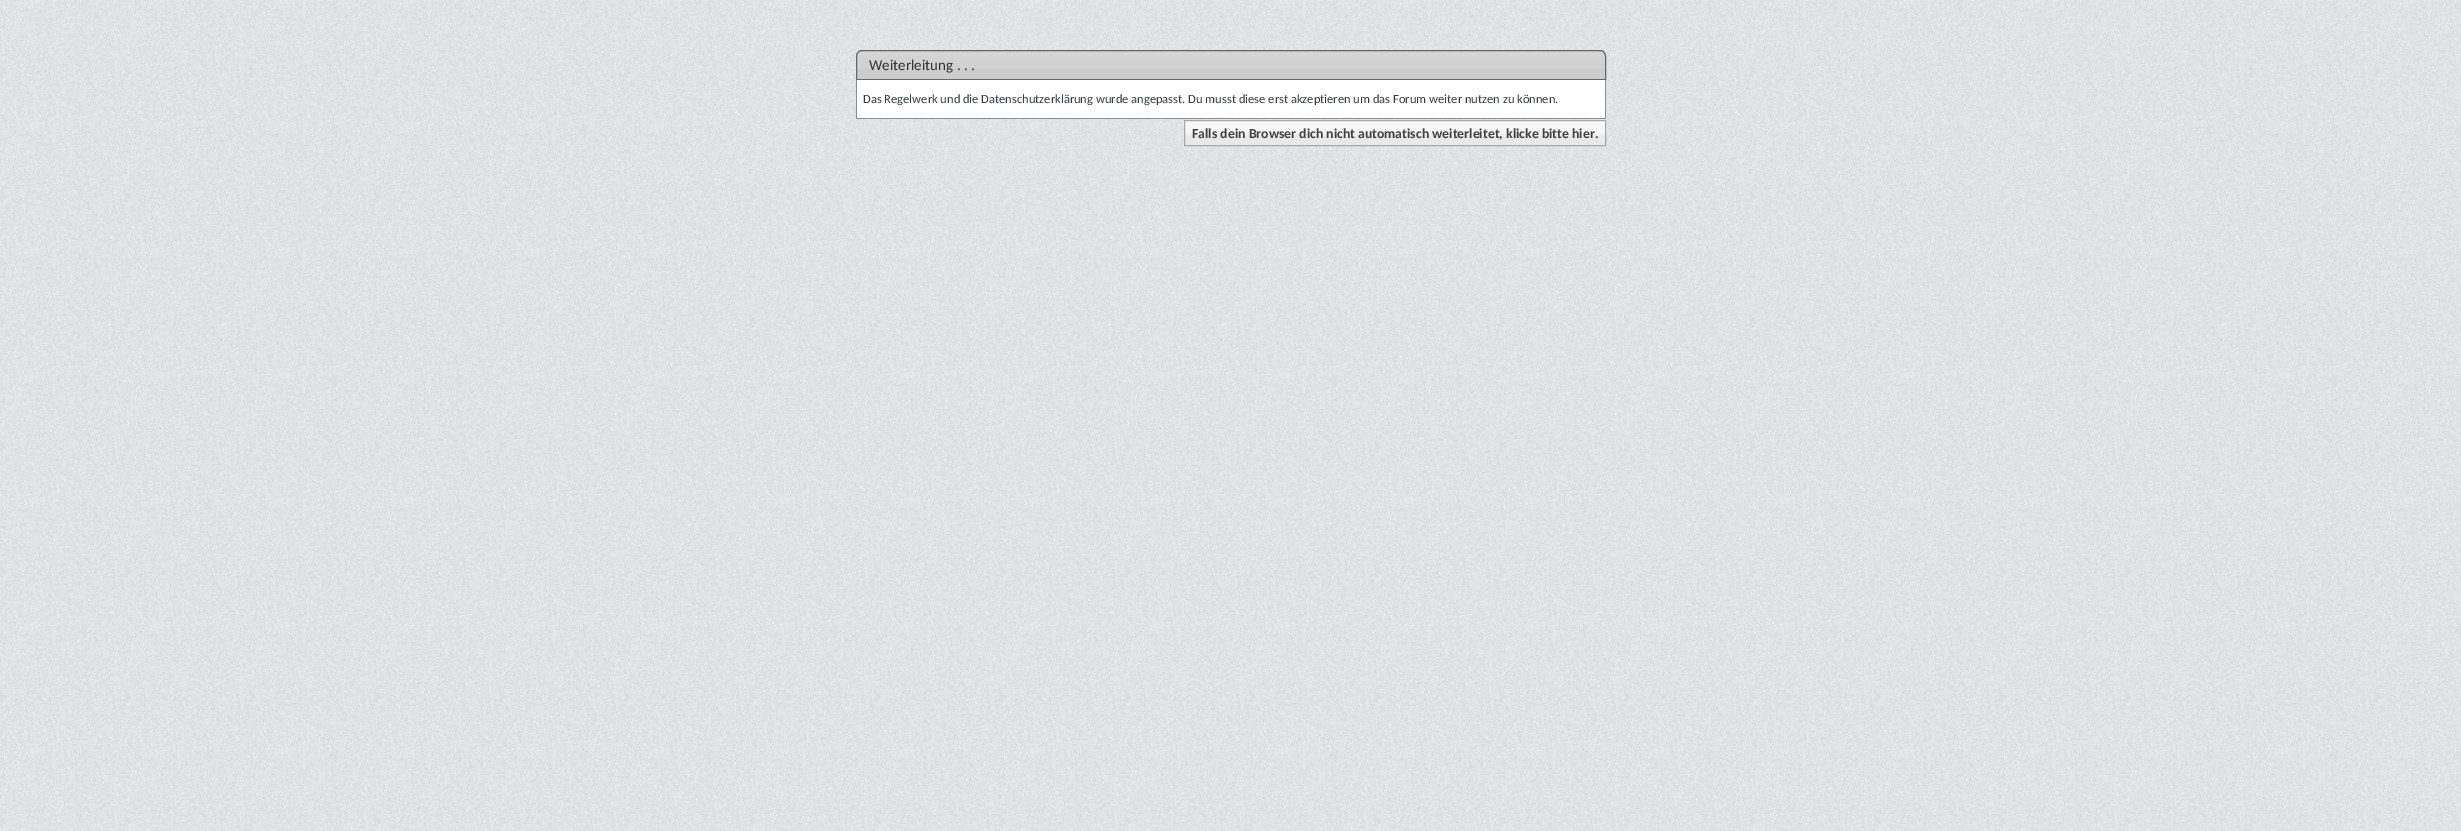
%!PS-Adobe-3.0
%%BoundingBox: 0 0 2461 831
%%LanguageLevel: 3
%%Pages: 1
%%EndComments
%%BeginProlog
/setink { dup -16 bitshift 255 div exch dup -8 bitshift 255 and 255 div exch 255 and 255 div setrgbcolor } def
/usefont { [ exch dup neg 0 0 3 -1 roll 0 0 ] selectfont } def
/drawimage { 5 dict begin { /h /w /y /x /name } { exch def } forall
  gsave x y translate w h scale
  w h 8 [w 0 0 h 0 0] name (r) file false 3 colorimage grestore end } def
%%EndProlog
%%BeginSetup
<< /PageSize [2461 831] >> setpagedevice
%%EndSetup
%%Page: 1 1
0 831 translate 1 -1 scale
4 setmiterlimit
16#FFFFFF setink
0 0 2461 831 rectfill
(img1.raw) 0 0 2461 831 drawimage
16#CCCCCC setink
862 50 moveto 1600 50 lineto 1603.5 50 1606 52.5 1606 56 curveto 1606 80 lineto 856 80 lineto 856 56 lineto 856 52.5 858.5 50 862 50 curveto closepath fill
(img2.raw) 856 51 750 18 drawimage
16#666666 setink
862 50.5 moveto 1600 50.5 lineto 1603 50.5 1605.5 53 1605.5 56 curveto 1605.5 79.5 lineto 856.5 79.5 lineto 856.5 56 lineto 856.5 53 859 50.5 862 50.5 curveto closepath stroke
/Carlito-Regular 15 usefont
16#333333 setink
869 70 moveto (Weiterleitung . . .) show
[
    [857 80 748 38 16#FFFFFF]
    [1605 80 1 39 16#8C8C8C]
    [856 118 750 1 16#8C8C8C]
    [856 80 1 39 16#8C8C8C]
] { aload pop setink rectfill } forall
/Carlito-Regular 12.5 usefont
16#303D44 setink
863 103 moveto (Das Regelwerk und die Datenschutzerklärung wurde angepasst. Du musst diese erst akzeptieren um das Forum weiter nutzen zu können.) show
16#E9E9E9 setink
1185 121 420 24 rectfill
(img3.raw) 1183 121 424 15 drawimage
16#A8A8A8 setink
1184.5 120.5 421 25 rectstroke
/Carlito-Bold 13.75 usefont
16#424242 setink
1192 138 moveto (Falls dein Browser dich nicht automatisch weiterleitet, klicke bitte hier.) show
showpage
%%EOF
